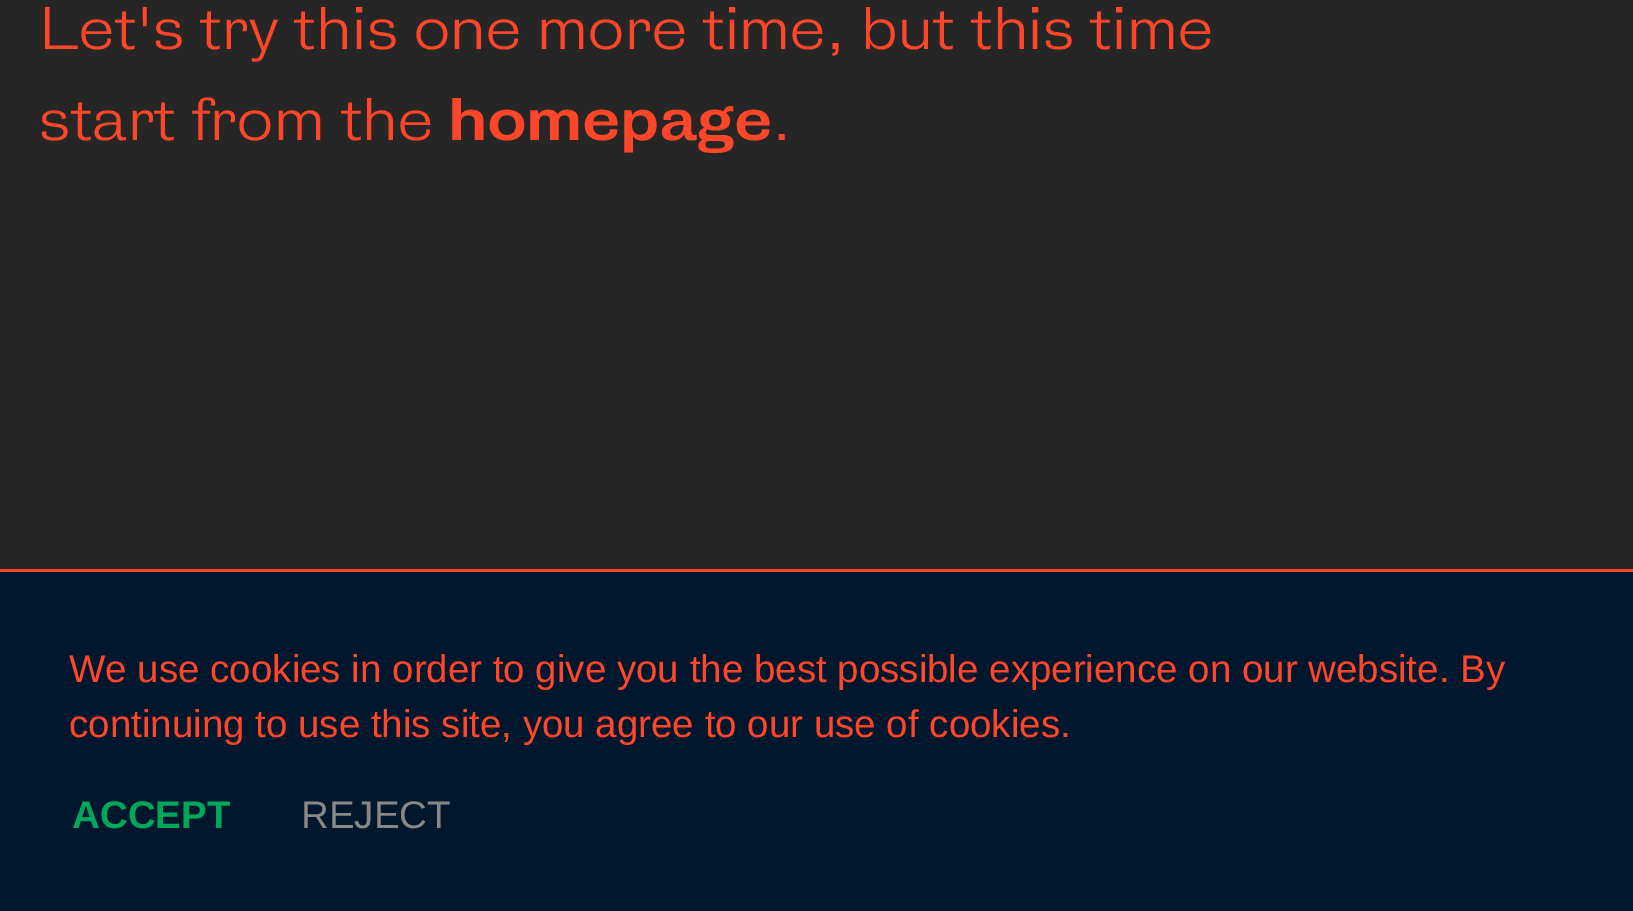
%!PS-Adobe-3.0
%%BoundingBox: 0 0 1633 911
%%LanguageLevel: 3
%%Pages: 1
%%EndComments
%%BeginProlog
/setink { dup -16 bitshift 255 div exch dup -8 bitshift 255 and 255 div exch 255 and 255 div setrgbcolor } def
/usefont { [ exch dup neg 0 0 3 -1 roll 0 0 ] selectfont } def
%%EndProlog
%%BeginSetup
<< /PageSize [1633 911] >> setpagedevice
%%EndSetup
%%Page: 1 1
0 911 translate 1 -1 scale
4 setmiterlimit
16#262626 setink
0 0 1633 911 rectfill
/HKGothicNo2-Regular 56.75 usefont
16#FF4629 setink
39 49 moveto 0.55 0 (Let's try this one more time, but this time) ashow
39 140 moveto 0.55 0 (start from the) ashow
/HKGothicNo2-Bold 56.75 usefont
448 140 moveto 0.55 0 (homepage) ashow
/HKGothicNo2-Regular 56.75 usefont
772 140 moveto 0.55 0 (.) ashow
16#00172D setink
0 572 1633 339 rectfill
16#FF4629 setink
0 569 1633 3 rectfill
/LiberationSans-Regular 38.5 usefont
69 682 moveto (We use cookies in order to give you the best possible experience on our website. By) show
69 737 moveto (continuing to use this site, you agree to our use of cookies.) show
/LiberationSans-Bold 38.5 usefont
16#00A65A setink
72 828 moveto (ACCEPT) show
/LiberationSans-Regular 38.5 usefont
16#888888 setink
301 828 moveto (REJECT) show
showpage
%%EOF
